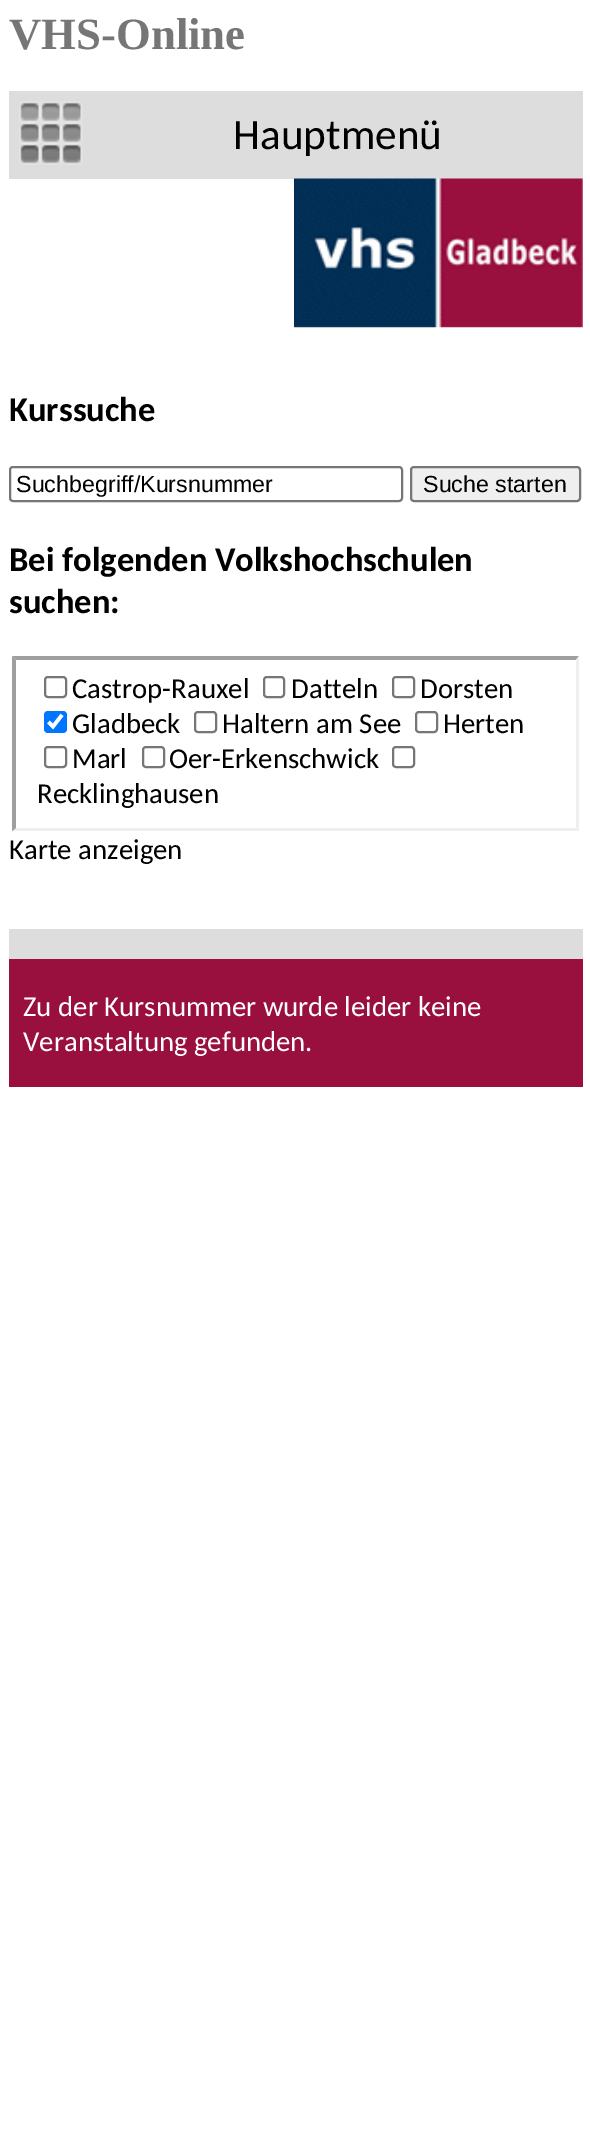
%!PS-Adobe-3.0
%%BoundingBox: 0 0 590 2131
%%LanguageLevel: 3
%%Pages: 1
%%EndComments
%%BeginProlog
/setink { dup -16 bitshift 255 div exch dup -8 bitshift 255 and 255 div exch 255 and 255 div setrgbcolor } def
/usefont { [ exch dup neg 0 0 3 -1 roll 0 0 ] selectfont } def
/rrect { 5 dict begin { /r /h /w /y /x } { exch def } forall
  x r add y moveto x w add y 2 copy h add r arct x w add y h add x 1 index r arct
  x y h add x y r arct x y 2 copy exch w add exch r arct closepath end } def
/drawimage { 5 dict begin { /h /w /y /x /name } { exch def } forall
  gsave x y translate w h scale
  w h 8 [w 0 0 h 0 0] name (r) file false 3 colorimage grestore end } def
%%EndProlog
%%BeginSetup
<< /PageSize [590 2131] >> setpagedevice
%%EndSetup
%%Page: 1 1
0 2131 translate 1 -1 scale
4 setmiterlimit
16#FFFFFF setink
0 0 590 2131 rectfill
/LiberationSerif-Bold 44.75 usefont
16#767676 setink
9 49 moveto (VHS-Online) show
16#DDDDDD setink
9 91 574 88 rectfill
(img1.raw) 19 101 64 64 drawimage
/Carlito-Regular 43.25 usefont
16#000000 setink
233 149 moveto (Hauptmenü) show
(img2.raw) 294 178 289 150 drawimage
/Carlito-Bold 34.6 usefont
9 421 moveto (Kurssuche) show
16#767676 setink
2 setlinewidth
10 467 392 34 3 rrect stroke
/LiberationSans-Regular 23.25 usefont
16#000000 setink
16 492 moveto (Suchbegriff/Kursnummer) show
16#EFEFEF setink
411 467 169 34 3 rrect gsave fill grestore
16#767676 setink
stroke
16#000000 setink
423 492 moveto (Suche starten) show
/Carlito-Bold 34.6 usefont
9 571 moveto (Bei folgenden Volkshochschulen) show
9 613 moveto (suchen:) show
16#9F9F9F setink
12 656 moveto 579 656 lineto 576 660 lineto 16 660 lineto closepath fill
16#EFEFEF setink
579 656 moveto 579 831 lineto 576 828 lineto 576 660 lineto closepath fill
579 831 moveto 12 831 lineto 16 828 lineto 576 828 lineto closepath fill
16#9F9F9F setink
12 831 moveto 12 656 lineto 16 660 lineto 16 828 lineto closepath fill
16#767676 setink
45 677 21 20 3 rrect stroke
/Carlito-Regular 28.8 usefont
16#000000 setink
72 698 moveto (Castrop-Rauxel) show
16#767676 setink
264 677 20 20 3 rrect stroke
16#000000 setink
291 698 moveto (Datteln) show
16#767676 setink
393 677 21 20 3 rrect stroke
16#000000 setink
420 698 moveto (Dorsten) show
16#0075FF setink
44 711 23 22 4 rrect fill
16#FFFFFF setink
3.6 setlinewidth
48.5 722 moveto 53 726.5 lineto 62 715 lineto stroke
16#000000 setink
72 733 moveto (Gladbeck) show
16#767676 setink
2 setlinewidth
195 712 21 20 3 rrect stroke
16#000000 setink
222 733 moveto (Haltern am See) show
16#767676 setink
416 712 21 20 3 rrect stroke
16#000000 setink
443 733 moveto (Herten) show
16#767676 setink
45 747 21 20 3 rrect stroke
16#000000 setink
72 768 moveto (Marl) show
16#767676 setink
143 747 21 20 3 rrect stroke
16#000000 setink
169 768 moveto (Oer-Erkenschwick) show
16#767676 setink
393 747 21 20 3 rrect stroke
16#000000 setink
37 803 moveto (Recklinghausen) show
9 859 moveto (Karte anzeigen) show
16#DDDDDD setink
9 929 574 30 rectfill
16#99103E setink
9 959 574 128 rectfill
16#FFFFFF setink
23 1016 moveto (Zu der Kursnummer wurde leider keine) show
23 1051 moveto (Veranstaltung gefunden.) show
showpage
%%EOF
